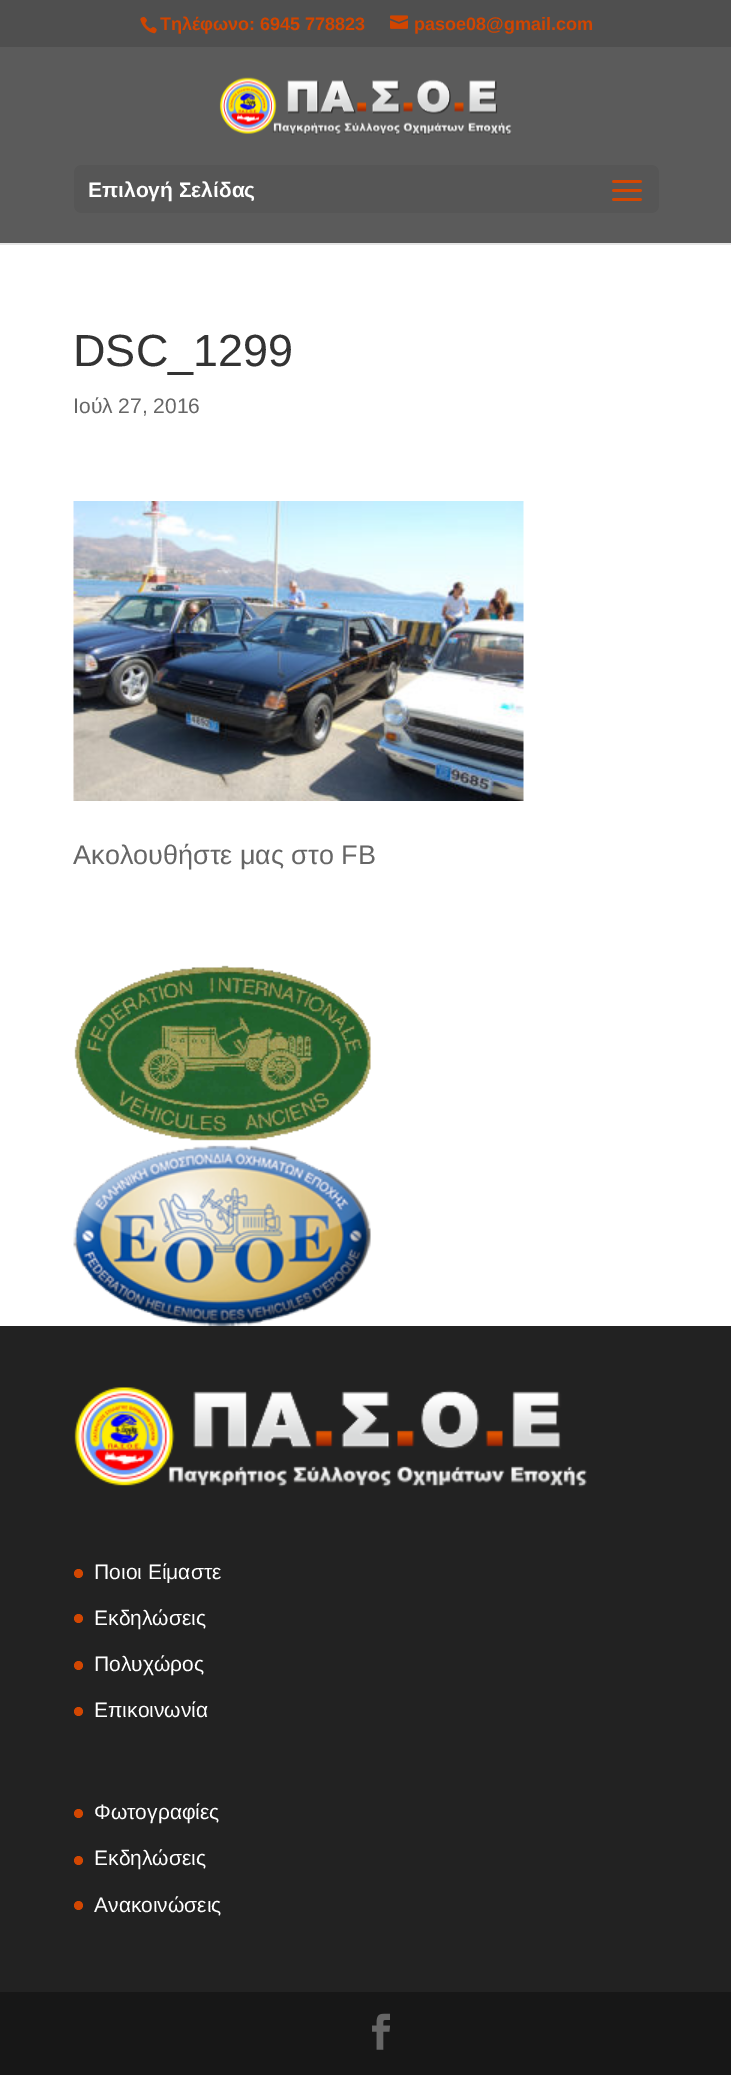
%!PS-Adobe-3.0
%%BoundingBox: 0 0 731 2085
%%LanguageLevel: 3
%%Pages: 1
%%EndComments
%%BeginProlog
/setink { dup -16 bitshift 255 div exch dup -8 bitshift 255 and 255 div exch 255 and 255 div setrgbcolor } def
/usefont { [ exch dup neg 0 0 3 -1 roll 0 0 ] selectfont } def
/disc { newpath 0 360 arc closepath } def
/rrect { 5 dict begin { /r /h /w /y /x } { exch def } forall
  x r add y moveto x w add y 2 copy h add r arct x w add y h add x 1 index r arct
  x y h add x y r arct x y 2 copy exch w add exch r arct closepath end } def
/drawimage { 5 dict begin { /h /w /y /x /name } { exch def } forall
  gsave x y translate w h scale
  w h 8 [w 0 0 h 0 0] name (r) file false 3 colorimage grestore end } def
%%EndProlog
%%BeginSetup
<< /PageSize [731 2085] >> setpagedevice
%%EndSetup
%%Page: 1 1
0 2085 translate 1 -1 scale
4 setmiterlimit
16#FFFFFF setink
0 0 731 2085 rectfill
16#4F4F4F setink
0 0 731 47 rectfill
(img1.raw) 140 16 17 18 drawimage
/Arimo-Bold 18 usefont
16#D14500 setink
160 30 moveto (Τηλέφωνο: 6945 778823) show
(img2.raw) 390 15 18 14 drawimage
414 30 moveto (pasoe08@gmail.com) show
16#E6E6E6 setink
0 243 731 2 rectfill
16#5B5B5B setink
0 47 731 196 rectfill
(img3.raw) 219 77 293 58 drawimage
16#565656 setink
74 165 585 48 8 rrect fill
/Arimo-Bold 21 usefont
16#FFFFFF setink
88 197 moveto (Επιλογή Σελίδας) show
(img4.raw) 612 180 30 21 drawimage
/Arimo-Regular 45 usefont
16#333333 setink
73 366 moveto (DSC_1299) show
/Arimo-Regular 21 usefont
16#666666 setink
73 413 moveto (Ιούλ 27, 2016) show
(img5.raw) 73 501 451 300 drawimage
/Arimo-Regular 27 usefont
73 864 moveto (Ακολουθήστε μας στο FB) show
(img6.raw) 74 965 297 176 drawimage
(img7.raw) 73 1145 298 181 drawimage
16#222222 setink
0 1326 731 666 rectfill
(img8.raw) 74 1387 513 100 drawimage
16#D24702 setink
78.5 1573.5 4.5 disc fill
/Arimo-Regular 21 usefont
16#FFFFFF setink
94 1579 moveto (Ποιοι Είμαστε) show
16#D24702 setink
78.5 1618.5 4.5 disc fill
16#FFFFFF setink
94 1625 moveto (Εκδηλώσεις) show
16#D24702 setink
78.5 1665.5 4.5 disc fill
16#FFFFFF setink
94 1671 moveto (Πολυχώρος) show
16#D24702 setink
78.5 1711.5 4.5 disc fill
16#FFFFFF setink
94 1717 moveto (Επικοινωνία) show
16#D24702 setink
78.5 1813.5 4.5 disc fill
16#FFFFFF setink
94 1819 moveto (Φωτογραφίες) show
16#D24702 setink
78.5 1860.5 4.5 disc fill
16#FFFFFF setink
94 1865 moveto (Εκδηλώσεις) show
16#D24702 setink
78.5 1905.5 4.5 disc fill
16#FFFFFF setink
94 1912 moveto (Ανακοινώσεις) show
16#171717 setink
0 1992 731 83 rectfill
(img9.raw) 372 2013 18 37 drawimage
showpage
%%EOF
